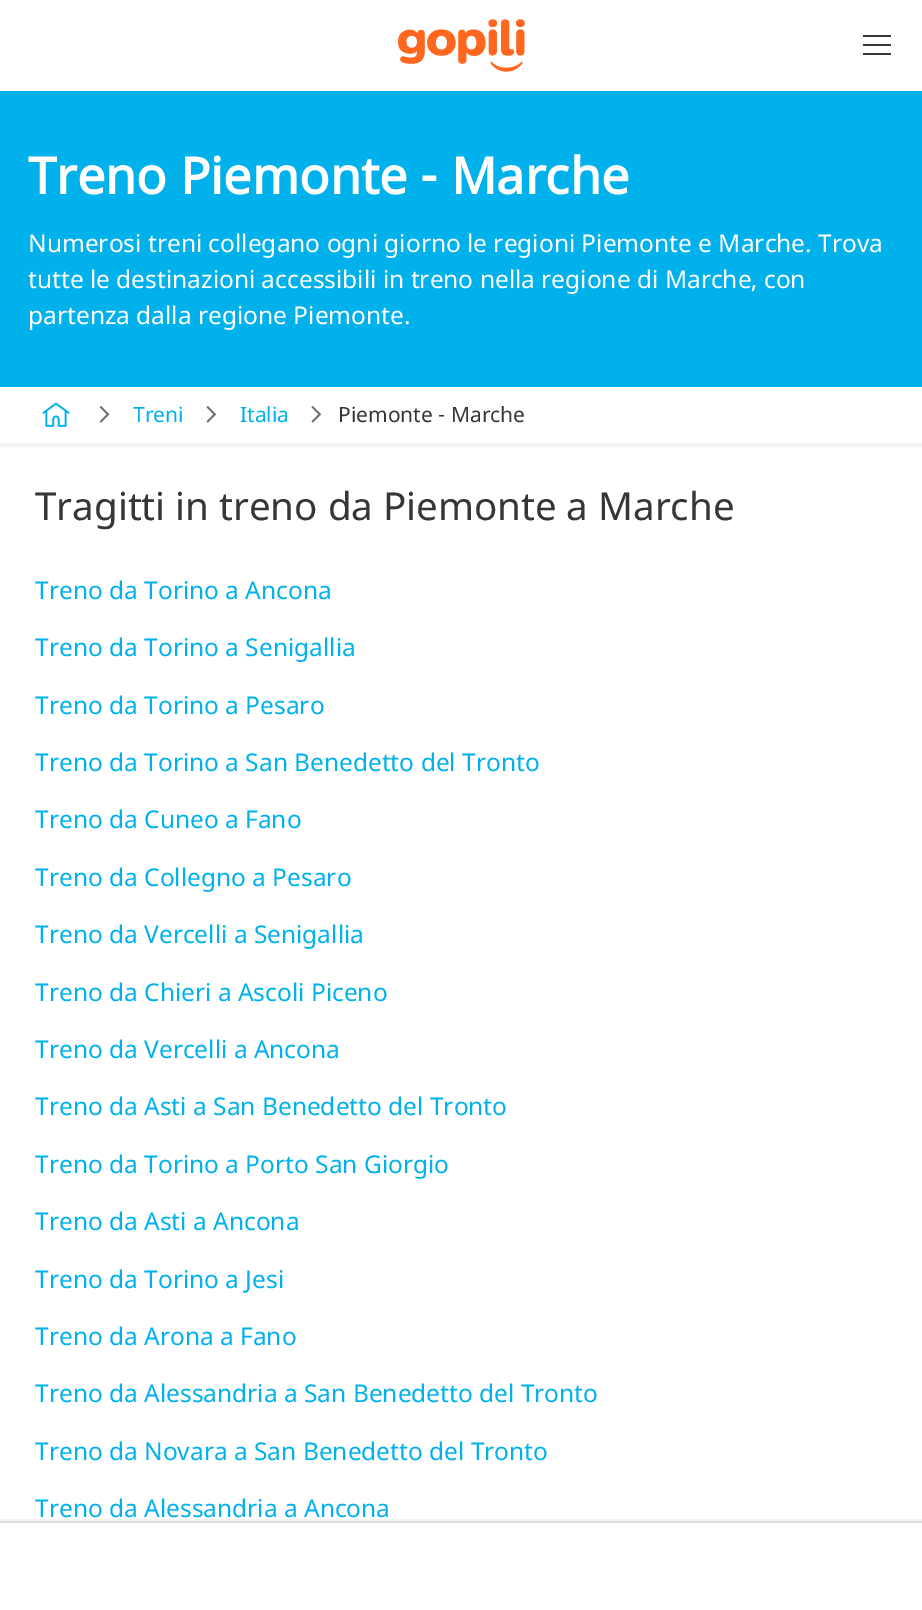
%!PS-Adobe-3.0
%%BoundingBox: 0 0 922 1610
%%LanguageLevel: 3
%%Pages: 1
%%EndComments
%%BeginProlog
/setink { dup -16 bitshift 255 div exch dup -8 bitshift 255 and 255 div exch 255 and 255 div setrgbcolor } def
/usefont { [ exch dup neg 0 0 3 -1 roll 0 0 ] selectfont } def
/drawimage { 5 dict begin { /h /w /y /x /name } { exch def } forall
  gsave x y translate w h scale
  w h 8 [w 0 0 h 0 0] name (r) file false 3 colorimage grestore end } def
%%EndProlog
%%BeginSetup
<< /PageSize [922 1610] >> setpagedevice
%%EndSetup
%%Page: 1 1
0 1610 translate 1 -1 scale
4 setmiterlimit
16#FFFFFF setink
0 0 922 1610 rectfill
(img1.raw) 397 19 128 53 drawimage
[
    [863 35 28 2 16#363636]
    [863 44 28 2 16#363636]
    [863 53 28 2 16#363636]
    [0 91 922 296 16#00B1EB]
] { aload pop setink rectfill } forall
/NotoSans-Bold 50.4 usefont
16#FFFFFF setink
28 194 moveto (Treno Piemonte - Marche) show
/NotoSans-Regular 24.5 usefont
[
    [(Numerosi treni collegano ogni giorno le regioni Piemonte e Marche. Trova) 28 252]
    [(tutte le destinazioni accessibili in treno nella regione di Marche, con) 28 288]
    [(partenza dalla regione Piemonte.) 28 324]
] { aload pop moveto show } forall
16#F5F5F5 setink
0 443 922 4 rectfill
(img2.raw) 42 402 28 25 drawimage
(img3.raw) 99 406 11 17 drawimage
/NotoSans-Regular 21 usefont
16#00B1EB setink
133 422 moveto (Treni) show
(img4.raw) 206 406 11 17 drawimage
240 422 moveto (Italia) show
(img4.raw) 311 406 11 17 drawimage
16#363636 setink
338 422 moveto (Piemonte - Marche) show
/NotoSans-Regular 38.5 usefont
35 520 moveto (Tragitti in treno da Piemonte a Marche) show
/NotoSans-Regular 24.5 usefont
16#00B1EB setink
[
    [(Treno da Torino a Ancona) 35 599]
    [(Treno da Torino a Senigallia) 35 656]
    [(Treno da Torino a Pesaro) 35 714]
    [(Treno da Torino a San Benedetto del Tronto) 35 771]
    [(Treno da Cuneo a Fano) 35 828]
    [(Treno da Collegno a Pesaro) 35 886]
    [(Treno da Vercelli a Senigallia) 35 943]
    [(Treno da Chieri a Ascoli Piceno) 35 1001]
    [(Treno da Vercelli a Ancona) 35 1058]
    [(Treno da Asti a San Benedetto del Tronto) 35 1115]
    [(Treno da Torino a Porto San Giorgio) 35 1173]
    [(Treno da Asti a Ancona) 35 1230]
    [(Treno da Torino a Jesi) 35 1288]
    [(Treno da Arona a Fano) 35 1345]
    [(Treno da Alessandria a San Benedetto del Tronto) 35 1402]
    [(Treno da Novara a San Benedetto del Tronto) 35 1460]
    [(Treno da Alessandria a Ancona) 35 1517]
] { aload pop moveto show } forall
16#DBDBDB setink
0 1521 922 2 rectfill
16#F5F5F5 setink
2 setlinewidth
-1 1520 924 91 rectstroke
showpage
%%EOF
